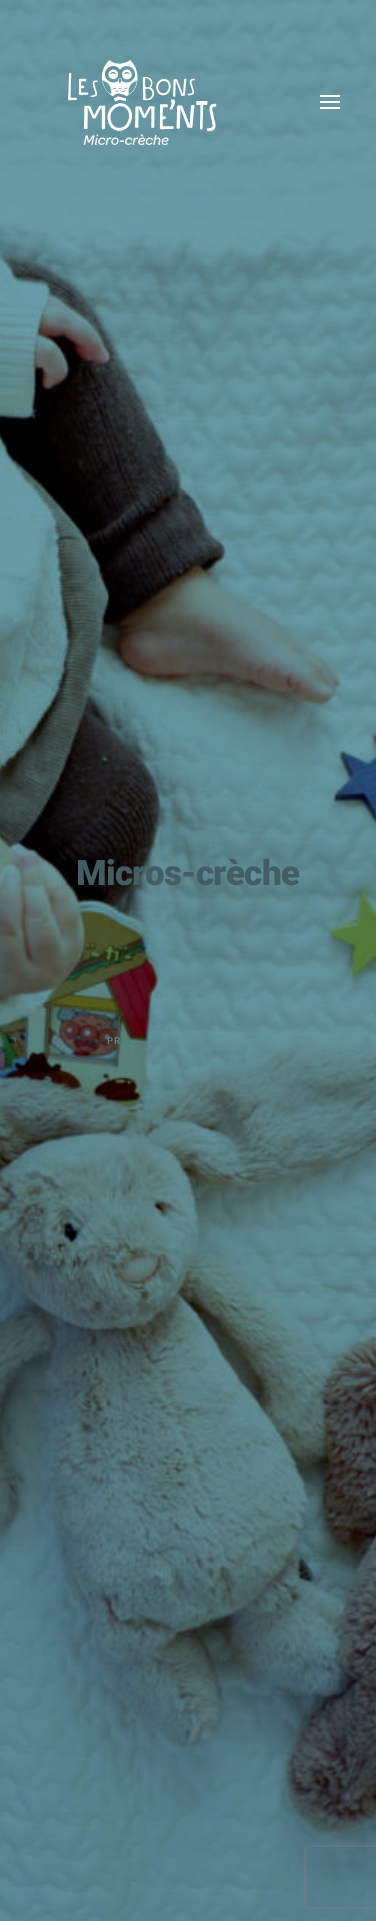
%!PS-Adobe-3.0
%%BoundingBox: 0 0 376 1921
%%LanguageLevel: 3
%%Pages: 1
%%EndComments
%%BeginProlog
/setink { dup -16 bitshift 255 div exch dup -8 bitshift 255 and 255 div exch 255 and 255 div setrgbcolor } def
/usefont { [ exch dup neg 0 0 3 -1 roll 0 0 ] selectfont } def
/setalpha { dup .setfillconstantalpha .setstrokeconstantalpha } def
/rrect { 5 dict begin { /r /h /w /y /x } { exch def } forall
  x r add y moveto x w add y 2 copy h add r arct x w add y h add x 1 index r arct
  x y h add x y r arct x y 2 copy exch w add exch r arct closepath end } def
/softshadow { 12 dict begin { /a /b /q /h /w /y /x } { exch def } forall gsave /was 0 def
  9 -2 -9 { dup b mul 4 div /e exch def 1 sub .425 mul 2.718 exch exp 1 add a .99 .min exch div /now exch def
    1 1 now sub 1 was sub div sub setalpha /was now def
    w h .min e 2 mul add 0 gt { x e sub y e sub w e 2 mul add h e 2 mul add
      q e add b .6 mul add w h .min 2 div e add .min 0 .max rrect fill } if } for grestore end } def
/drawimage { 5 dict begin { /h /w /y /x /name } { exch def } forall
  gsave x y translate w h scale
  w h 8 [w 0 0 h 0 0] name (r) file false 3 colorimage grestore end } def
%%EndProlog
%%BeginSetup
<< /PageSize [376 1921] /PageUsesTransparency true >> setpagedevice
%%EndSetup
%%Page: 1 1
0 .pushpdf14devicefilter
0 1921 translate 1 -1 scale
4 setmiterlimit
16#FFFFFF setink
0 0 376 1921 rectfill
(img2.raw) 0 0 376 1921 drawimage
(img1.raw) 68 60 149 85 drawimage
320 101 20 2 1 rrect fill
320 95 20 2 1 rrect fill
320 107 20 2 1 rrect fill
/Roboto-Black 35 usefont
16#425E63 setink
76 885 moveto -0.75 0 (Micros-crèche) ashow
/Poppins-SemiBold 10 usefont
16#5A8185 setink
107 1044 moveto 1 0 (PR) ashow
gsave
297 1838 moveto 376 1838 lineto 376 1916 lineto 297 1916 lineto closepath 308 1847 moveto 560 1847 lineto 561 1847 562 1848 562 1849 curveto 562 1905 lineto 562 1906 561 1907 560 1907 curveto 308 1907 lineto 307 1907 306 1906 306 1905 curveto 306 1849 lineto 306 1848 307 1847 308 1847 curveto closepath eoclip newpath
16#808080 setink
306 1847 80 60 2 2.5 1 softshadow
grestore
.poppdf14devicefilter showpage
%%EOF
